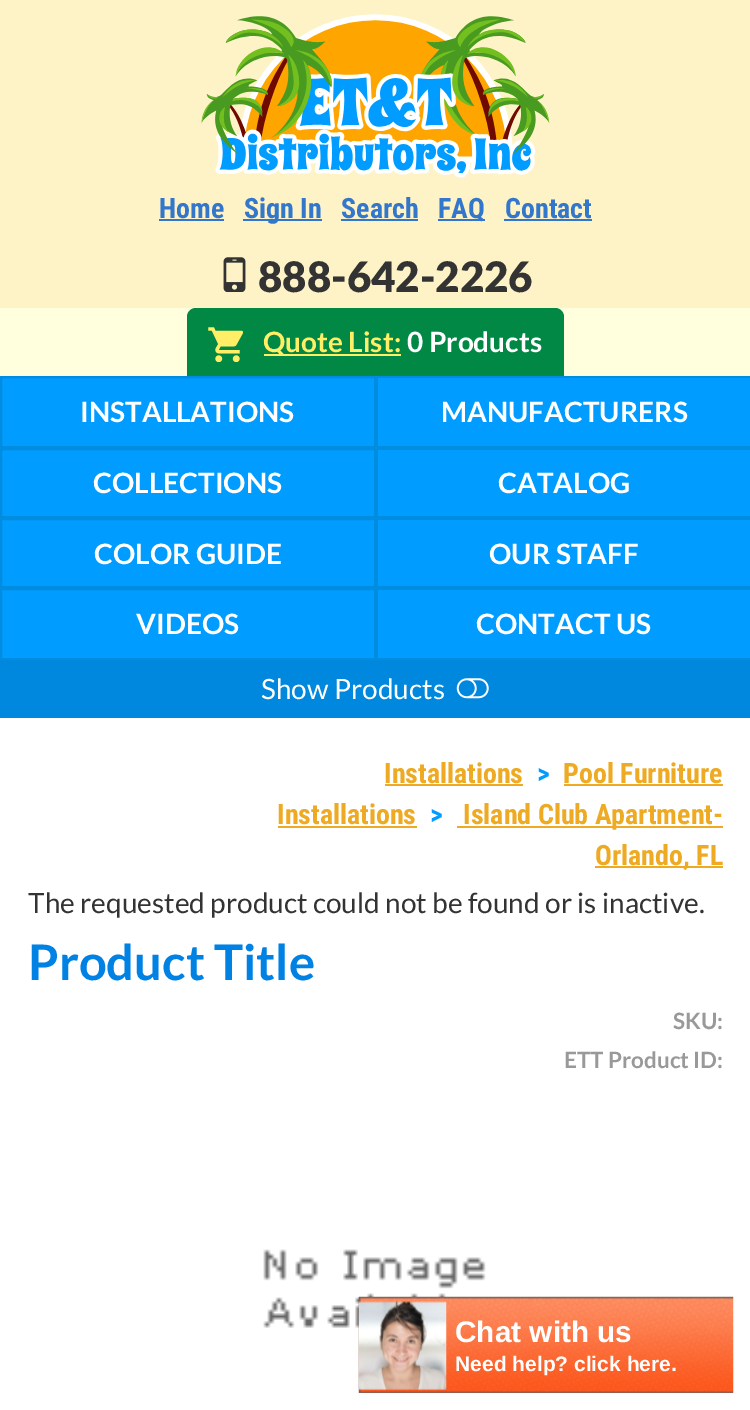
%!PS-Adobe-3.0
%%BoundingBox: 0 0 750 1410
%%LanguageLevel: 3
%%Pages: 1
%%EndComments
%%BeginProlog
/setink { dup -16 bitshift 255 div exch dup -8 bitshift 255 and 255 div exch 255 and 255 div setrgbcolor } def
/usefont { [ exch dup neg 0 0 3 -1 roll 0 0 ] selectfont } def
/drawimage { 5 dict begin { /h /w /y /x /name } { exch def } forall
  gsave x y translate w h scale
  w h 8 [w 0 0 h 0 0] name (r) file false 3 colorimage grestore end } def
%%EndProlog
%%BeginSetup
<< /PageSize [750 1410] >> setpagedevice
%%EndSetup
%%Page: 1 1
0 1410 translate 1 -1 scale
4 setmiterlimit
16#FFFFFF setink
0 0 750 1410 rectfill
16#FEF3C7 setink
0 0 750 308 rectfill
(img1.raw) 201 14 349 164 drawimage
/RobotoCondensed-Bold 28 usefont
16#3377CC setink
159 218 moveto (Home) show
159 219 65 2 rectfill
243 219 79 2 rectfill
244 218 moveto (Sign In) show
341 218 moveto (Search) show
341 219 77 2 rectfill
438 219 47 2 rectfill
438 218 moveto (FAQ) show
505 218 moveto (Contact) show
504 219 88 2 rectfill
(img2.raw) 223 257 23 35 drawimage
/Lato-Black 42 usefont
16#333333 setink
258 292 moveto (888-642-2226) show
16#FFFFDD setink
0 308 750 68 rectfill
16#008844 setink
196 308 moveto 555 308 lineto 560 308 564 312 564 317 curveto 564 376 lineto 187 376 lineto 187 317 lineto 187 312 191 308 196 308 curveto closepath fill
(img3.raw) 208 327 35 35 drawimage
16#FFEE66 setink
264 354 137 2 rectfill
/Lato-Bold 28 usefont
263 352 moveto (Quote List:) show
16#FFFFFF setink
407 352 moveto (0 Products) show
16#009CFF setink
1 377 moveto 375 377 lineto 375 447 lineto 1 447 lineto closepath gsave fill grestore
16#008CDF setink
2 setlinewidth
stroke
16#FFFFFF setink
80 422 moveto (INSTALLATIONS) show
[
    [378 378 372 68 16#009CFF]
    [376 376 374 2 16#008CDF]
    [376 446 374 4 16#008CDF]
    [376 376 2 72 16#008CDF]
] { aload pop setink rectfill } forall
16#FFFFFF setink
441 422 moveto (MANUFACTURERS) show
16#009CFF setink
1 449 moveto 375 449 lineto 375 517 lineto 1 517 lineto closepath gsave fill grestore
16#008CDF setink
stroke
16#FFFFFF setink
93 493 moveto (COLLECTIONS) show
[
    [378 450 372 66 16#009CFF]
    [376 516 374 4 16#008CDF]
    [376 448 2 70 16#008CDF]
] { aload pop setink rectfill } forall
16#FFFFFF setink
498 493 moveto (CATALOG) show
16#009CFF setink
1 519 moveto 375 519 lineto 375 587 lineto 1 587 lineto closepath gsave fill grestore
16#008CDF setink
stroke
16#FFFFFF setink
94 564 moveto (COLOR GUIDE) show
[
    [378 520 372 66 16#009CFF]
    [376 586 374 4 16#008CDF]
    [376 518 2 70 16#008CDF]
] { aload pop setink rectfill } forall
16#FFFFFF setink
489 564 moveto (OUR STAFF) show
16#009CFF setink
1 589 moveto 375 589 lineto 375 659 lineto 1 659 lineto closepath gsave fill grestore
16#008CDF setink
stroke
16#FFFFFF setink
136 634 moveto (VIDEOS) show
[
    [378 590 372 68 16#009CFF]
    [376 658 374 2 16#008CDF]
    [376 588 2 72 16#008CDF]
] { aload pop setink rectfill } forall
16#FFFFFF setink
476 634 moveto (CONTACT US) show
16#0088DE setink
0 660 750 58 rectfill
/Lato-Regular 28 usefont
16#FFFFFF setink
261 699 moveto (Show Products) show
(img4.raw) 456 678 33 21 drawimage
/RobotoCondensed-Bold 28 usefont
16#EEAA22 setink
384 783 moveto (Installations) show
385 784 138 2 rectfill
16#009CFF setink
537 783 moveto (>) show
16#EEAA22 setink
563 783 moveto (Pool Furniture) show
564 784 159 2 rectfill
277 824 moveto (Installations) show
278 826 139 2 rectfill
16#009CFF setink
430 824 moveto (>) show
16#EEAA22 setink
457 826 266 2 rectfill
463 824 moveto (Island Club Apartment-) show
595 866 128 2 rectfill
595 865 moveto (Orlando, FL) show
/Lato-Regular 28 usefont
16#333333 setink
28 913 moveto (The requested product could not be found or is inactive.) show
/Lato-Bold 49 usefont
16#0082E4 setink
28 980 moveto (Product Title) show
/Lato-Bold 22.5 usefont
16#999999 setink
673 1029 moveto (SKU:) show
564 1068 moveto (ETT Product ID:) show
(img5.raw) 263 1249 223 79 drawimage
(img6.raw) 358 1296 376 97 drawimage
(img7.raw) 358 1301 89 89 drawimage
/LiberationSans-Bold 29.75 usefont
16#FFFFFF setink
455 1342 moveto (Chat with us) show
/LiberationSans-Bold 21 usefont
455 1371 moveto (Need help? click here.) show
showpage
%%EOF
